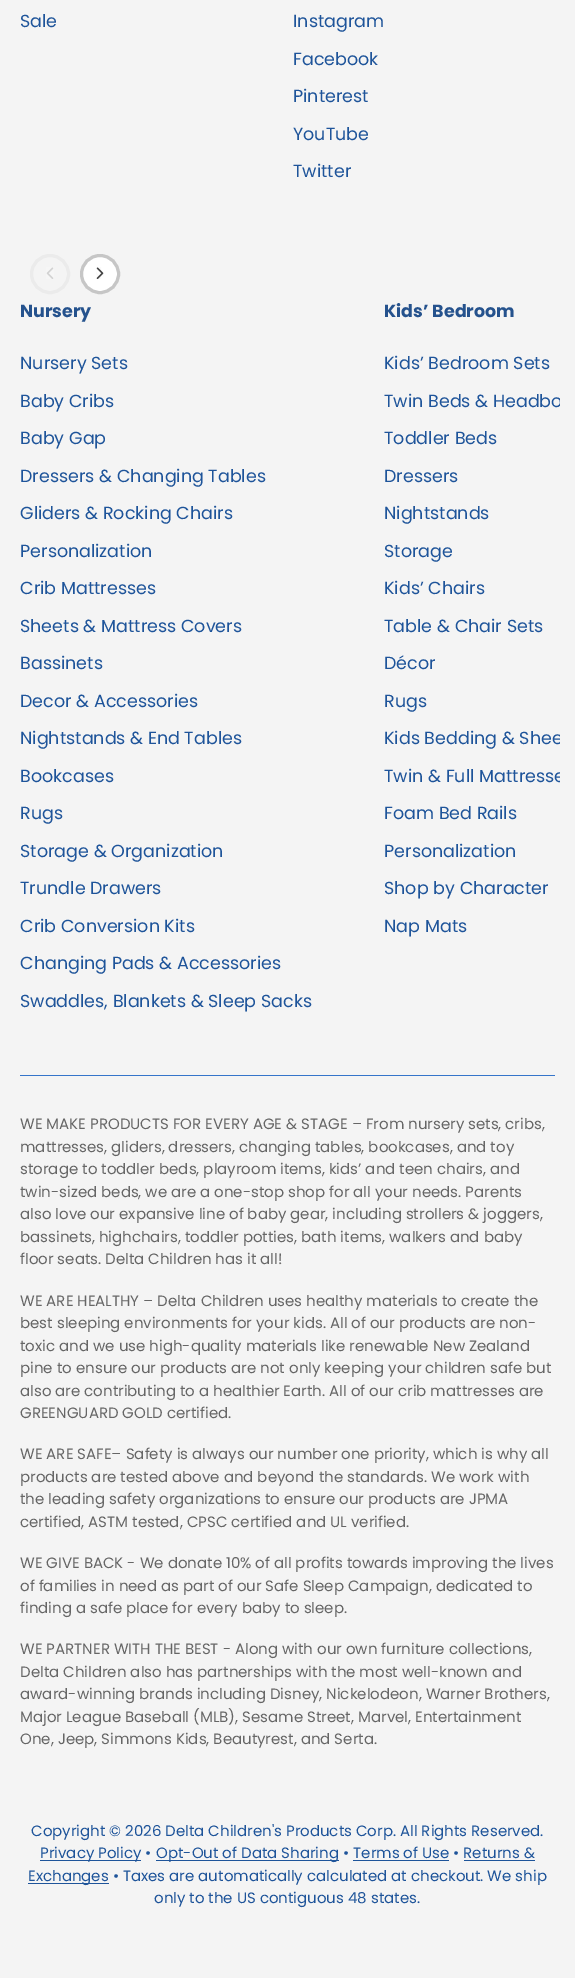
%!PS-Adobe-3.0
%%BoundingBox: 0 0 575 1978
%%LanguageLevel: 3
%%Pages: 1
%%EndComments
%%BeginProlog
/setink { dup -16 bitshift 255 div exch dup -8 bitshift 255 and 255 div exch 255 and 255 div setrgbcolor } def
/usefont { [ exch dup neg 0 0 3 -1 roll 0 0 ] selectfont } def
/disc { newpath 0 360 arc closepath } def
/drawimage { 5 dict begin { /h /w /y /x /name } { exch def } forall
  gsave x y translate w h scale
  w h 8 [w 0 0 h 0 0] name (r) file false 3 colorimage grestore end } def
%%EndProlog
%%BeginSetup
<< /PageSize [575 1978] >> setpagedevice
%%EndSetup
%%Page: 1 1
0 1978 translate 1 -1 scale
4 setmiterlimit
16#F4F4F4 setink
0 0 575 1978 rectfill
/Poppins-Regular 17.5 usefont
16#1E549A setink
[
    [(Sale) 20 27]
    [(Instagram) 293 27]
    [(Facebook) 293 65]
    [(Pinterest) 293 102]
    [(YouTube) 293 140]
    [(Twitter) 293 177]
] { aload pop moveto show } forall
16#EBEBEB setink
3 setlinewidth
50 274 18.5 disc stroke
(img1.raw) 46 267 8 12 drawimage
16#FFFFFF setink
100 274 18.5 disc gsave fill grestore
16#C6C6C6 setink
stroke
(img2.raw) 96 267 8 12 drawimage
/Poppins-Bold 17.5 usefont
16#25528D setink
20 317 moveto (Nursery) show
/Poppins-Regular 17.5 usefont
16#1E549A setink
[
    [(Nursery Sets) 20 369]
    [(Baby Cribs) 20 407]
    [(Baby Gap) 20 444]
    [(Dressers & Changing Tables) 20 482]
    [(Gliders & Rocking Chairs) 20 519]
    [(Personalization) 20 557]
    [(Crib Mattresses) 20 594]
    [(Sheets & Mattress Covers) 20 632]
    [(Bassinets) 20 669]
    [(Decor & Accessories) 20 707]
    [(Nightstands & End Tables) 20 744]
    [(Bookcases) 20 782]
    [(Rugs) 20 819]
    [(Storage & Organization) 20 857]
    [(Trundle Drawers) 20 894]
    [(Crib Conversion Kits) 20 932]
    [(Changing Pads & Accessories) 20 969]
    [(Swaddles, Blankets & Sleep Sacks) 20 1007]
] { aload pop moveto show } forall
/Poppins-Bold 17.5 usefont
16#25528D setink
384 317 moveto (Kids’ Bedroom) show
/Poppins-Regular 17.5 usefont
16#1E549A setink
384 369 moveto (Kids’ Bedroom Sets) show
gsave
15 301 545 737 rectclip
384 407 moveto (Twin Beds & Headbo) show
grestore
[
    [(Toddler Beds) 384 444]
    [(Dressers) 384 482]
    [(Nightstands) 384 519]
    [(Storage) 384 557]
    [(Kids’ Chairs) 384 594]
    [(Table & Chair Sets) 384 632]
    [(Décor) 384 669]
    [(Rugs) 384 707]
] { aload pop moveto show } forall
gsave
15 301 545 737 rectclip
384 744 moveto (Kids Bedding & Shee) show
384 782 moveto (Twin & Full Mattresse) show
grestore
[
    [(Foam Bed Rails) 384 819]
    [(Personalization) 384 857]
    [(Shop by Character) 384 894]
    [(Nap Mats) 384 932]
] { aload pop moveto show } forall
16#3575CA setink
20 1075 535 1 rectfill
/Poppins-Regular 15 usefont
16#666666 setink
[
    [(WE MAKE PRODUCTS FOR EVERY AGE & STAGE – From nursery sets, cribs,) 20 1129]
    [(mattresses, gliders, dressers, changing tables, bookcases, and toy) 20 1152]
    [(storage to toddler beds, playroom items, kids’ and teen chairs, and) 20 1174]
    [(twin-sized beds, we are a one-stop shop for all your needs. Parents) 20 1197]
    [(also love our expansive line of baby gear, including strollers & joggers,) 20 1219]
    [(bassinets, highchairs, toddler potties, bath items, walkers and baby) 20 1242]
    [(floor seats. Delta Children has it all!) 20 1264]
    [(WE ARE HEALTHY – Delta Children uses healthy materials to create the) 20 1306]
    [(best sleeping environments for your kids. All of our products are non-) 20 1328]
    [(toxic and we use high-quality materials like renewable New Zealand) 20 1351]
    [(pine to ensure our products are not only keeping your children safe but) 20 1373]
    [(also are contributing to a healthier Earth. All of our crib mattresses are) 20 1396]
    [(GREENGUARD GOLD certified.) 20 1418]
    [(WE ARE SAFE– Safety is always our number one priority, which is why all) 20 1459]
    [(products are tested above and beyond the standards. We work with) 20 1482]
    [(the leading safety organizations to ensure our products are JPMA) 20 1504]
    [(certified, ASTM tested, CPSC certified and UL verified.) 20 1527]
    [(WE GIVE BACK - We donate 10% of all profits towards improving the lives) 20 1568]
    [(of families in need as part of our Safe Sleep Campaign, dedicated to) 20 1591]
    [(finding a safe place for every baby to sleep.) 20 1613]
    [(WE PARTNER WITH THE BEST - Along with our own furniture collections,) 20 1654]
    [(Delta Children also has partnerships with the most well-known and) 20 1677]
    [(award-winning brands including Disney, Nickelodeon, Warner Brothers,) 20 1699]
    [(Major League Baseball \(MLB\), Sesame Street, Marvel, Entertainment) 20 1722]
    [(One, Jeep, Simmons Kids, Beautyrest, and Serta.) 20 1744]
] { aload pop moveto show } forall
16#1E549A setink
31 1836 moveto (Copyright © 2026 Delta Children's Products Corp. All Rights Reserved.) show
40 1860 101 1 rectfill
40 1858 moveto (Privacy Policy •) show
156 1860 183 1 rectfill
156 1858 moveto (Opt-Out of Data Sharing • Terms of Use • Returns &) show
353 1860 96 1 rectfill
28 1883 81 1 rectfill
28 1881 moveto (Exchanges • Taxes are automatically calculated at checkout. We ship) show
464 1860 71 1 rectfill
154 1903 moveto (only to the US contiguous 48 states.) show
showpage
%%EOF
